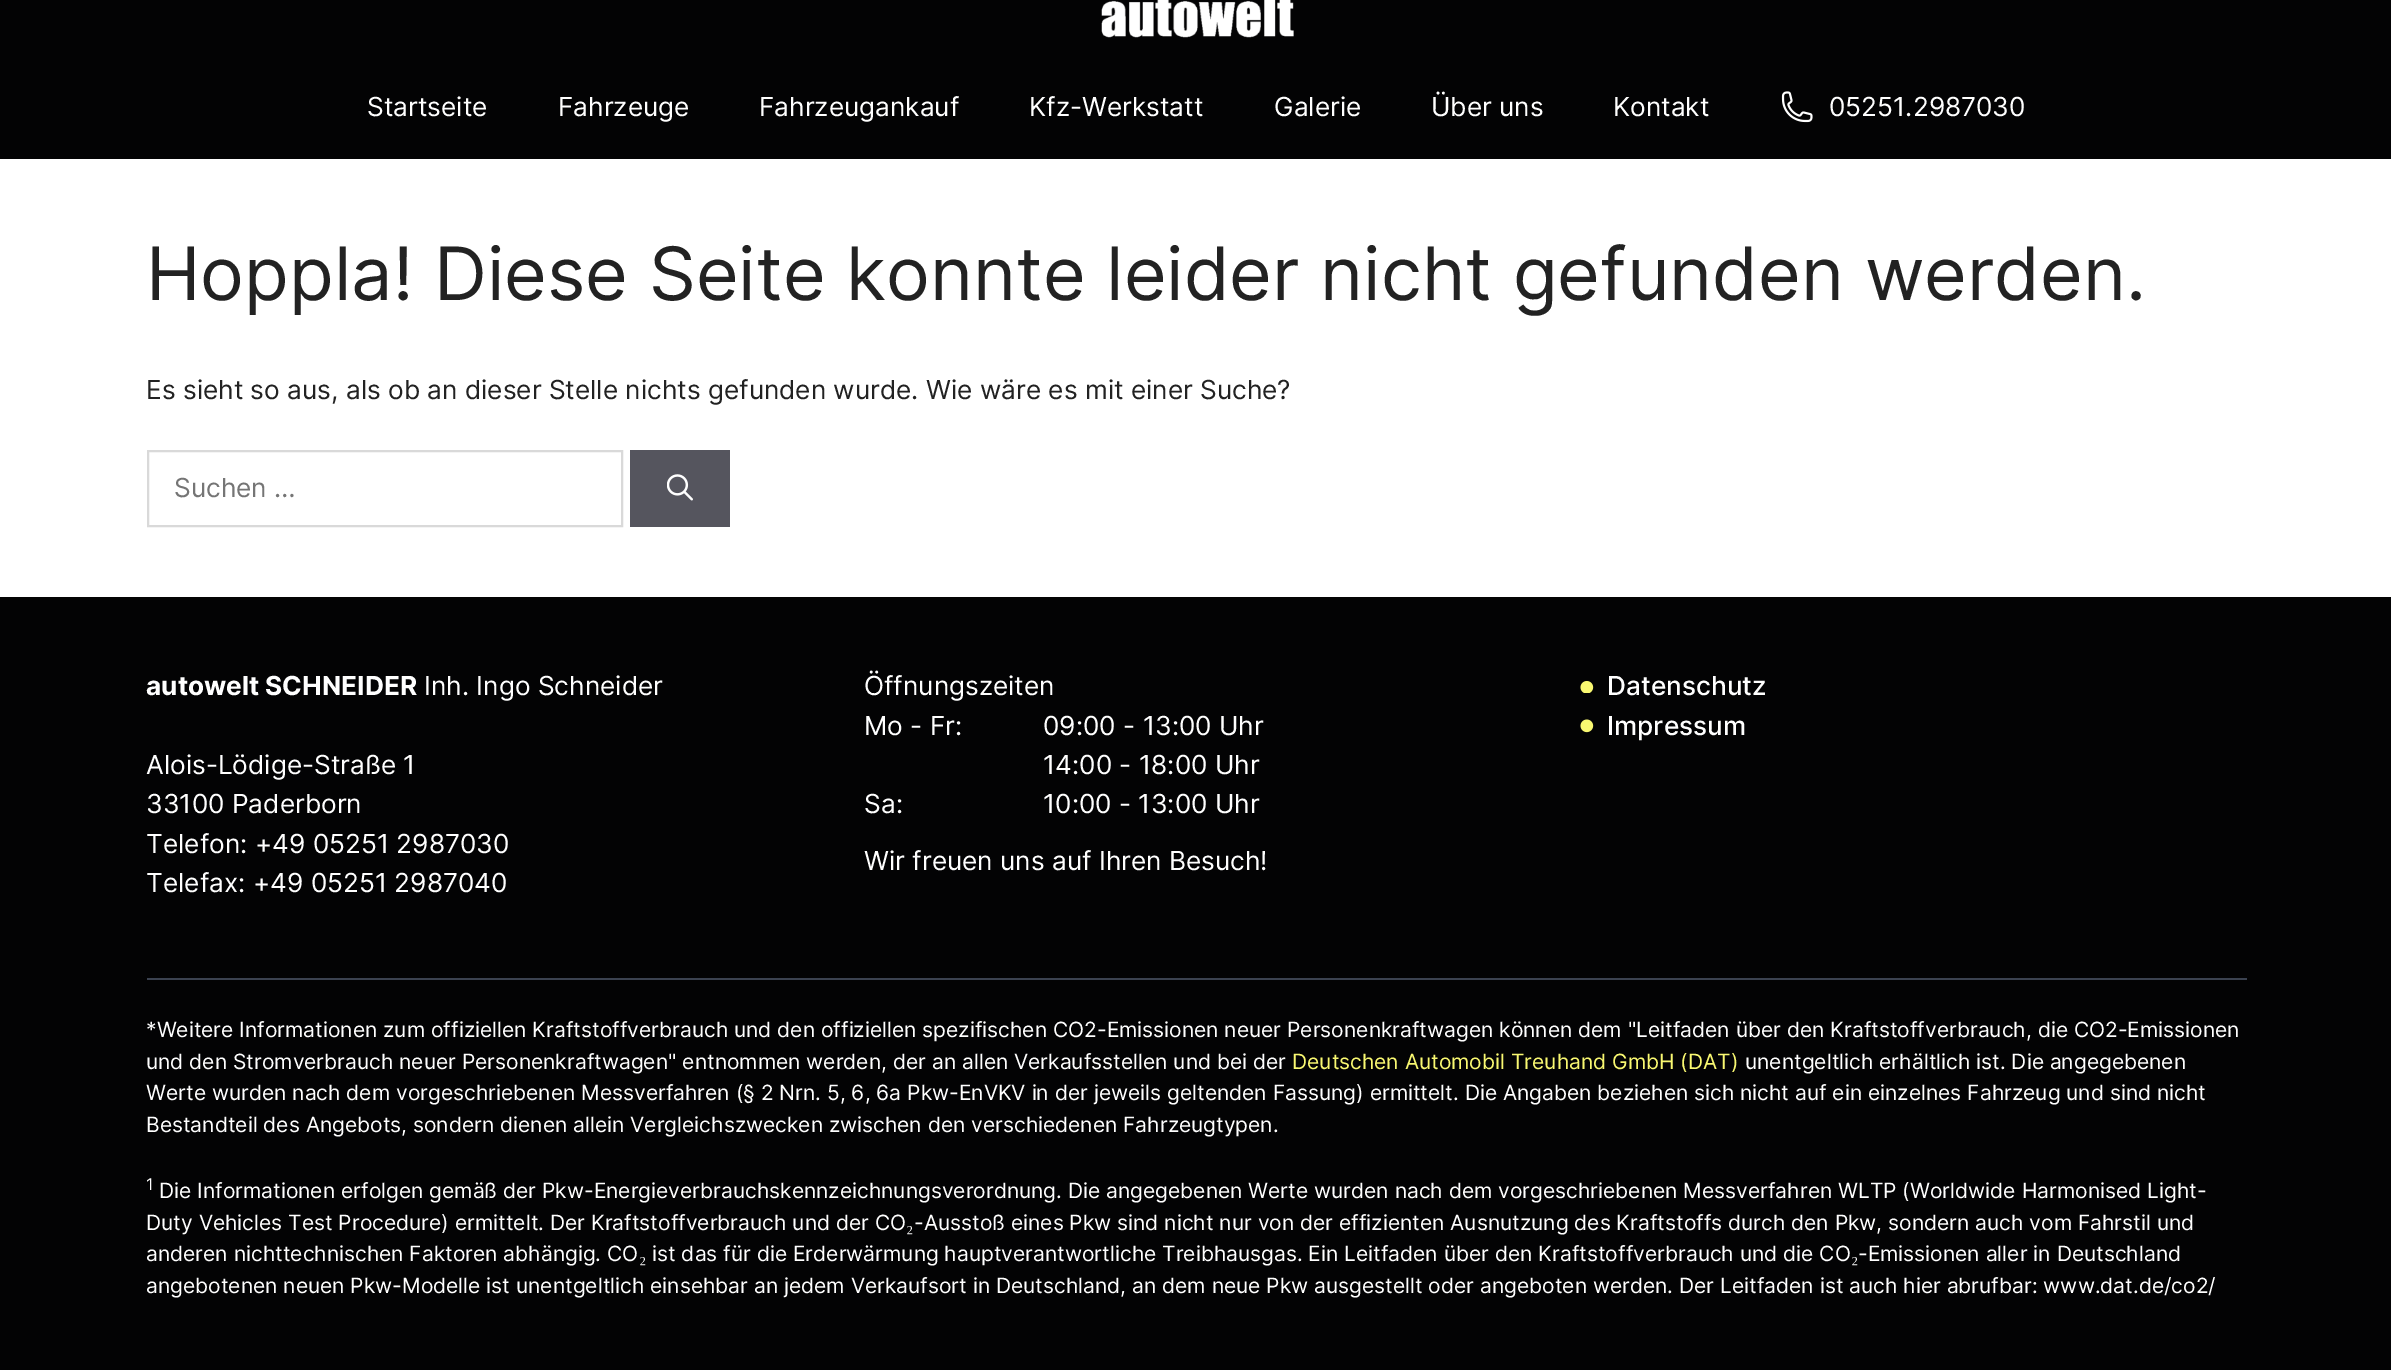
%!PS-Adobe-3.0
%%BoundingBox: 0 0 2391 1370
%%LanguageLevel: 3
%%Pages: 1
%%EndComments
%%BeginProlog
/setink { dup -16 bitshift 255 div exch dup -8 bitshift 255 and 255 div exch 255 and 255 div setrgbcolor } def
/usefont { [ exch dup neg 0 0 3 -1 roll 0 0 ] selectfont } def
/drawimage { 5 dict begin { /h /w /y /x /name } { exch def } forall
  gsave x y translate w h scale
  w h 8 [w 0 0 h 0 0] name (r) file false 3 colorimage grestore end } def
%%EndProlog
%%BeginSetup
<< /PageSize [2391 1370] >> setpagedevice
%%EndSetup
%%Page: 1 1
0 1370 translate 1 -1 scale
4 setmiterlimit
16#FFFFFF setink
0 0 2391 1370 rectfill
16#030304 setink
0 0 2391 159 rectfill
(img1.raw) 1101 0 193 38 drawimage
/Inter-Regular 26.25 usefont
16#FFFFFF setink
[
    [(Startseite) 367 116]
    [(Fahrzeuge) 558 116]
    [(Fahrzeugankauf) 759 116]
    [(Kfz-Werkstatt) 1029 116]
    [(Galerie) 1274 116]
    [(Über uns) 1431 116]
    [(Kontakt) 1613 116]
] { aload pop moveto show } forall
(img2.raw) 1781 91 32 32 drawimage
1829 116 moveto (05251.2987030) show
/Inter-Regular 73.5 usefont
16#222222 setink
146 300 moveto (Hoppla! Diese Seite konnte leider nicht gefunden werden.) show
/Inter-Regular 26.25 usefont
146 399 moveto (Es sieht so aus, als ob an dieser Stelle nichts gefunden wurde. Wie wäre es mit einer Suche?) show
16#D9D9D9 setink
2 setlinewidth
148 451 474 75 rectstroke
16#757575 setink
174 497 moveto (Suchen …) show
16#55555E setink
630 450 100 77 rectfill
(img3.raw) 667 474 26 27 drawimage
16#030304 setink
0 597 2391 773 rectfill
/Inter-Bold 26.25 usefont
16#FFFFFF setink
146 695 moveto (autowelt SCHNEIDER) show
/Inter-Regular 26.25 usefont
[
    [(Inh. Ingo Schneider) 424 695]
    [(Alois-Lödige-Straße 1) 146 774]
    [(33100 Paderborn) 146 813]
    [(Telefon: +49 05251 2987030) 146 853]
    [(Telefax: +49 05251 2987040) 146 892]
    [(Öffnungszeiten) 864 695]
    [(Mo - Fr:) 864 735]
    [(09:00 - 13:00 Uhr) 1043 735]
    [(14:00 - 18:00 Uhr) 1043 774]
    [(Sa:) 864 813]
    [(10:00 - 13:00 Uhr) 1043 813]
    [(Wir freuen uns auf Ihren Besuch!) 864 870]
] { aload pop moveto show } forall
(img4.raw) 1580 681 14 12 drawimage
/Inter-Medium 26.25 usefont
1607 695 moveto (Datenschutz) show
(img5.raw) 1580 719 14 14 drawimage
1607 735 moveto (Impressum) show
16#3B4250 setink
147 978 2100 2 rectfill
/Inter-Regular 21 usefont
16#FFFFFF setink
146 1037 moveto (*Weitere Informationen zum offiziellen Kraftstoffverbrauch und den offiziellen spezifischen CO2-Emissionen neuer Personenkraftwagen können dem "Leitfaden über den Kraftstoffverbrauch, die CO2-Emissionen) show
146 1069 moveto (und den Stromverbrauch neuer Personenkraftwagen" entnommen werden, der an allen Verkaufsstellen und bei der) show
16#F9F871 setink
1292 1069 moveto (Deutschen Automobil Treuhand GmbH \(DAT\)) show
16#FFFFFF setink
[
    [(unentgeltlich erhältlich ist. Die angegebenen) 1745 1069]
    [(Werte wurden nach dem vorgeschriebenen Messverfahren \(§ 2 Nrn. 5, 6, 6a Pkw-EnVKV in der jeweils geltenden Fassung\) ermittelt. Die Angaben beziehen sich nicht auf ein einzelnes Fahrzeug und sind nicht) 146 1100]
    [(Bestandteil des Angebots, sondern dienen allein Vergleichszwecken zwischen den verschiedenen Fahrzeugtypen.) 146 1132]
] { aload pop moveto show } forall
/Inter-Regular 16 usefont
146 1190 moveto (1) show
/Inter-Regular 21 usefont
159 1198 moveto (Die Informationen erfolgen gemäß der Pkw-Energieverbrauchskennzeichnungsverordnung. Die angegebenen Werte wurden nach dem vorgeschriebenen Messverfahren WLTP \(Worldwide Harmonised Light-) show
146 1230 moveto (Duty Vehicles Test Procedure\) ermittelt. Der Kraftstoffverbrauch und der CO) show
/LiberationSerif-Regular 21 usefont
906 1230 moveto (₂) show
/Inter-Regular 21 usefont
914 1230 moveto (-Ausstoß eines Pkw sind nicht nur von der effizienten Ausnutzung des Kraftstoffs durch den Pkw, sondern auch vom Fahrstil und) show
146 1261 moveto (anderen nichttechnischen Faktoren abhängig. CO) show
/LiberationSerif-Regular 21 usefont
639 1261 moveto (₂) show
/Inter-Regular 21 usefont
652 1261 moveto (ist das für die Erderwärmung hauptverantwortliche Treibhausgas. Ein Leitfaden über den Kraftstoffverbrauch und die CO) show
/LiberationSerif-Regular 21 usefont
1851 1261 moveto (₂) show
/Inter-Regular 21 usefont
1858 1261 moveto (-Emissionen aller in Deutschland) show
146 1293 moveto (angebotenen neuen Pkw-Modelle ist unentgeltlich einsehbar an jedem Verkaufsort in Deutschland, an dem neue Pkw ausgestellt oder angeboten werden. Der Leitfaden ist auch hier abrufbar: www.dat.de/co2/) show
showpage
%%EOF
